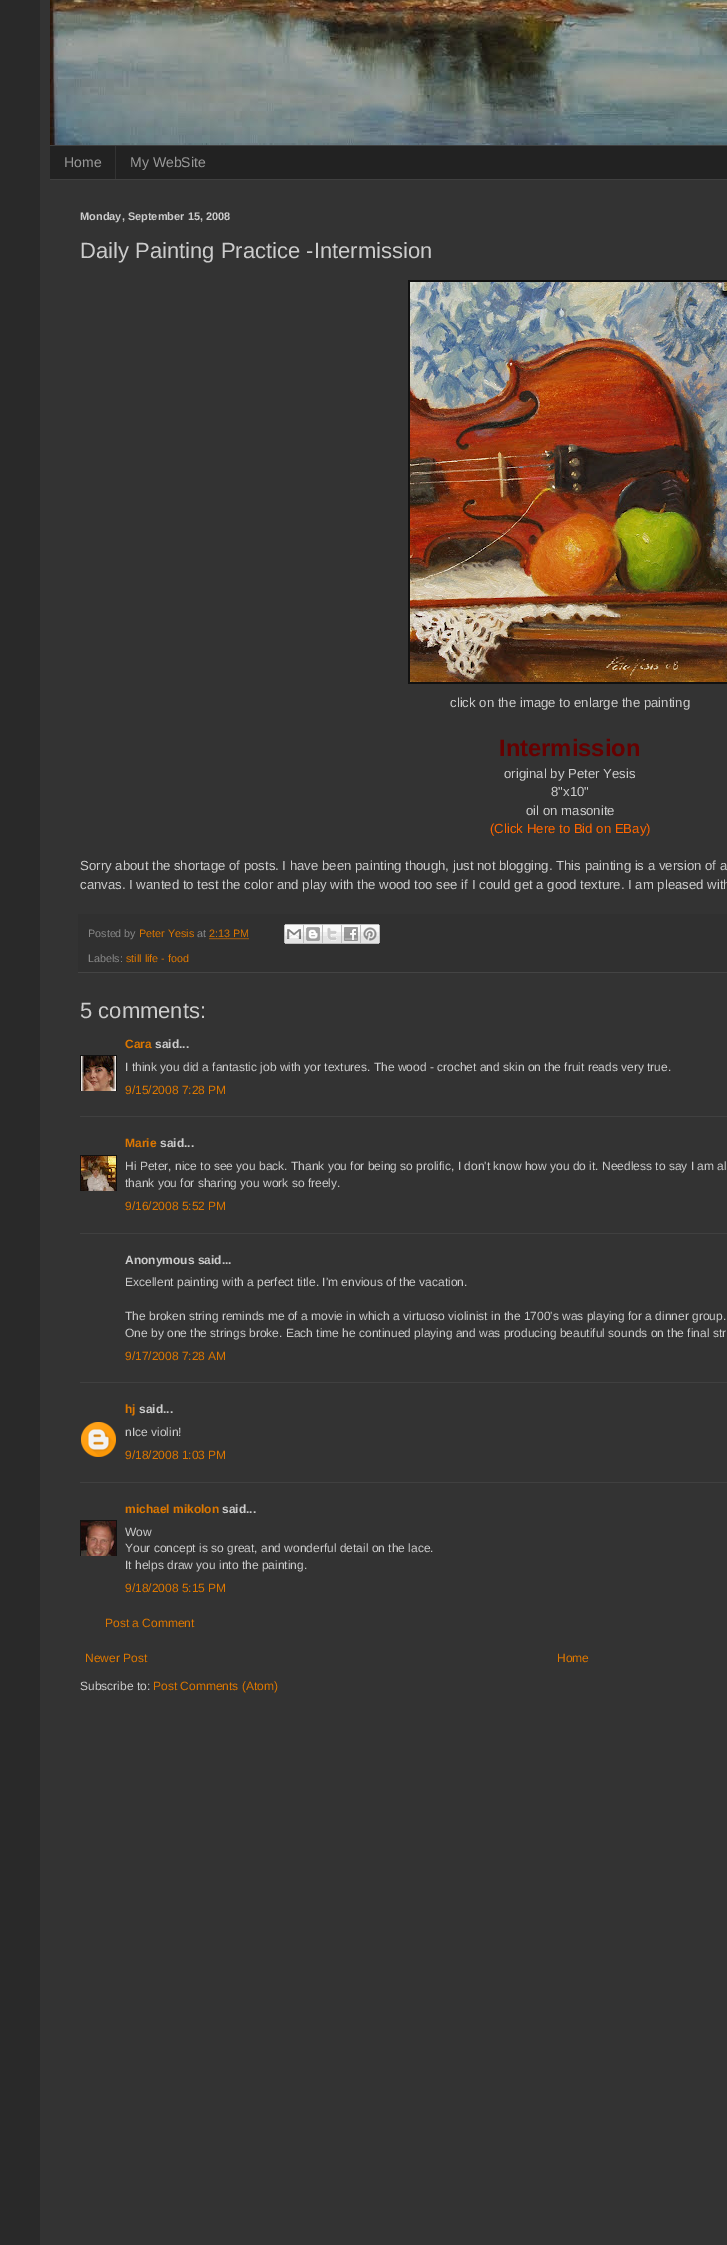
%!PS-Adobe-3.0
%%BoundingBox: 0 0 727 2245
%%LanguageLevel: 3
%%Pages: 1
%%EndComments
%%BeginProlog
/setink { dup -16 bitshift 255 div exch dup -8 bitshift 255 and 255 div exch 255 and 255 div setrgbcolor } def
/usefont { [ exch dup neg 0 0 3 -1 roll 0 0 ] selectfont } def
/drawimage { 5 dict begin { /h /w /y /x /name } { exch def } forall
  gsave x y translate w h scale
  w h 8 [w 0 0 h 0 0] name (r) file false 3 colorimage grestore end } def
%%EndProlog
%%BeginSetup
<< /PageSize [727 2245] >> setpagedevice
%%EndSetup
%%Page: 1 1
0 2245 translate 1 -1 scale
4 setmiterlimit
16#292929 setink
0 0 727 2245 rectfill
16#333333 setink
40 0 687 2245 rectfill
(img1.raw) 50 0 677 145 drawimage
[
    [50 146 677 33 16#222222]
    [50 145 677 1 16#404040]
    [50 179 677 1 16#404040]
] { aload pop setink rectfill } forall
/LiberationSans-Regular 14 usefont
16#999999 setink
64 167 moveto (Home) show
16#333333 setink
115 146 1 33 rectfill
16#999999 setink
130 167 moveto (My WebSite) show
/LiberationSans-Bold 11 usefont
16#CCCCCC setink
80 220 moveto (Monday, September 15, 2008) show
/LiberationSans-Regular 22 usefont
80 258 moveto (Daily Painting Practice -Intermission) show
16#111111 setink
408 280 319 404 rectfill
(img2.raw) 410 282 317 400 drawimage
/LiberationSans-Regular 13.2 usefont
16#CCCCCC setink
450 707 moveto (click on the image to enlarge the painting) show
/LiberationSans-Bold 23.75 usefont
16#660000 setink
499 756 moveto (Intermission) show
/LiberationSans-Regular 13.2 usefont
16#CCCCCC setink
[
    [(original by Peter Yesis) 504 778]
    [(8"x10") 551 796]
    [(oil on masonite) 526 815]
] { aload pop moveto show } forall
16#FF6600 setink
490 833 moveto (\(Click Here to Bid on EBay\)) show
16#CCCCCC setink
80 870 moveto (Sorry about the shortage of posts. I have been painting though, just not blogging. This painting is a version of a) show
80 889 moveto (canvas. I wanted to test the color and play with the wood too see if I could get a good texture. I am pleased with) show
16#303030 setink
78 914 649 58 rectfill
16#444444 setink
78 972 649 1 rectfill
/LiberationSans-Regular 10.75 usefont
16#888888 setink
88 937 moveto (Posted by) show
16#DD7700 setink
139 937 moveto (Peter Yesis) show
16#888888 setink
197 937 moveto (at) show
16#DD7700 setink
209 937 moveto (2:13 PM) show
[1 1] 0 setdash
209.5 938.5 moveto 249.5 938.5 lineto stroke
(img3.raw) 284 924 20 20 drawimage
(img4.raw) 304 924 19 20 drawimage
(img5.raw) 323 924 19 20 drawimage
(img6.raw) 342 924 19 20 drawimage
(img7.raw) 361 924 19 20 drawimage
16#888888 setink
88 962 moveto (Labels:) show
16#DD7700 setink
126 962 moveto (still life - food) show
/LiberationSans-Regular 22 usefont
16#CCCCCC setink
80 1018 moveto (5 comments:) show
/LiberationSans-Bold 12 usefont
16#DD7700 setink
125 1048 moveto (Cara) show
16#CCCCCC setink
155 1048 moveto (said...) show
gsave
80 1055 37 36 rectclip
16#111111 setink
[] 0 setdash
80.5 1055.5 36 36 rectstroke
grestore
(img8.raw) 81 1056 35 35 drawimage
/LiberationSans-Regular 12 usefont
125 1071 moveto (I think you did a fantastic job with yor textures. The wood - crochet and skin on the fruit reads very true.) show
16#DD7700 setink
125 1094 moveto (9/15/2008 7:28 PM) show
16#404040 setink
80 1116 647 1 rectfill
/LiberationSans-Bold 12 usefont
16#DD7700 setink
125 1147 moveto (Marie) show
16#CCCCCC setink
160 1147 moveto (said...) show
gsave
80 1155 37 36 rectclip
16#111111 setink
[] 0 setdash
80.5 1155.5 36 36 rectstroke
grestore
(img9.raw) 81 1156 35 35 drawimage
/LiberationSans-Regular 12 usefont
125 1170 moveto (Hi Peter, nice to see you back. Thank you for being so prolific, I don't know how you do it. Needless to say I am al) show
125 1187 moveto (thank you for sharing you work so freely.) show
16#DD7700 setink
125 1210 moveto (9/16/2008 5:52 PM) show
16#404040 setink
80 1233 647 1 rectfill
/LiberationSans-Bold 12 usefont
16#CCCCCC setink
125 1264 moveto (Anonymous said...) show
/LiberationSans-Regular 12 usefont
[
    [(Excellent painting with a perfect title. I'm envious of the vacation.) 125 1286]
    [(The broken string reminds me of a movie in which a virtuoso violinist in the 1700's was playing for a dinner group.) 125 1320]
    [(One by one the strings broke. Each time he continued playing and was producing beautiful sounds on the final str) 125 1337]
] { aload pop moveto show } forall
16#DD7700 setink
125 1360 moveto (9/17/2008 7:28 AM) show
16#404040 setink
80 1382 647 1 rectfill
/LiberationSans-Bold 12 usefont
16#DD7700 setink
125 1413 moveto (hj) show
16#CCCCCC setink
139 1413 moveto (said...) show
(img10.raw) 81 1422 35 35 drawimage
/LiberationSans-Regular 12 usefont
125 1436 moveto (nIce violin!) show
16#DD7700 setink
125 1459 moveto (9/18/2008 1:03 PM) show
16#404040 setink
80 1482 647 1 rectfill
/LiberationSans-Bold 12 usefont
16#DD7700 setink
125 1513 moveto (michael mikolon) show
16#CCCCCC setink
222 1513 moveto (said...) show
gsave
80 1520 37 36 rectclip
16#111111 setink
[] 0 setdash
80.5 1520.5 36 36 rectstroke
grestore
(img11.raw) 81 1521 35 35 drawimage
/LiberationSans-Regular 12 usefont
[
    [(Wow) 125 1536]
    [(Your concept is so great, and wonderful detail on the lace.) 125 1552]
    [(It helps draw you into the painting.) 125 1569]
] { aload pop moveto show } forall
16#DD7700 setink
[
    [(9/18/2008 5:15 PM) 125 1592]
    [(Post a Comment) 105 1627]
    [(Newer Post) 85 1662]
    [(Home) 557 1662]
] { aload pop moveto show } forall
16#CCCCCC setink
80 1690 moveto (Subscribe to:) show
16#DD7700 setink
153 1690 moveto (Post Comments \(Atom\)) show
showpage
%%EOF
